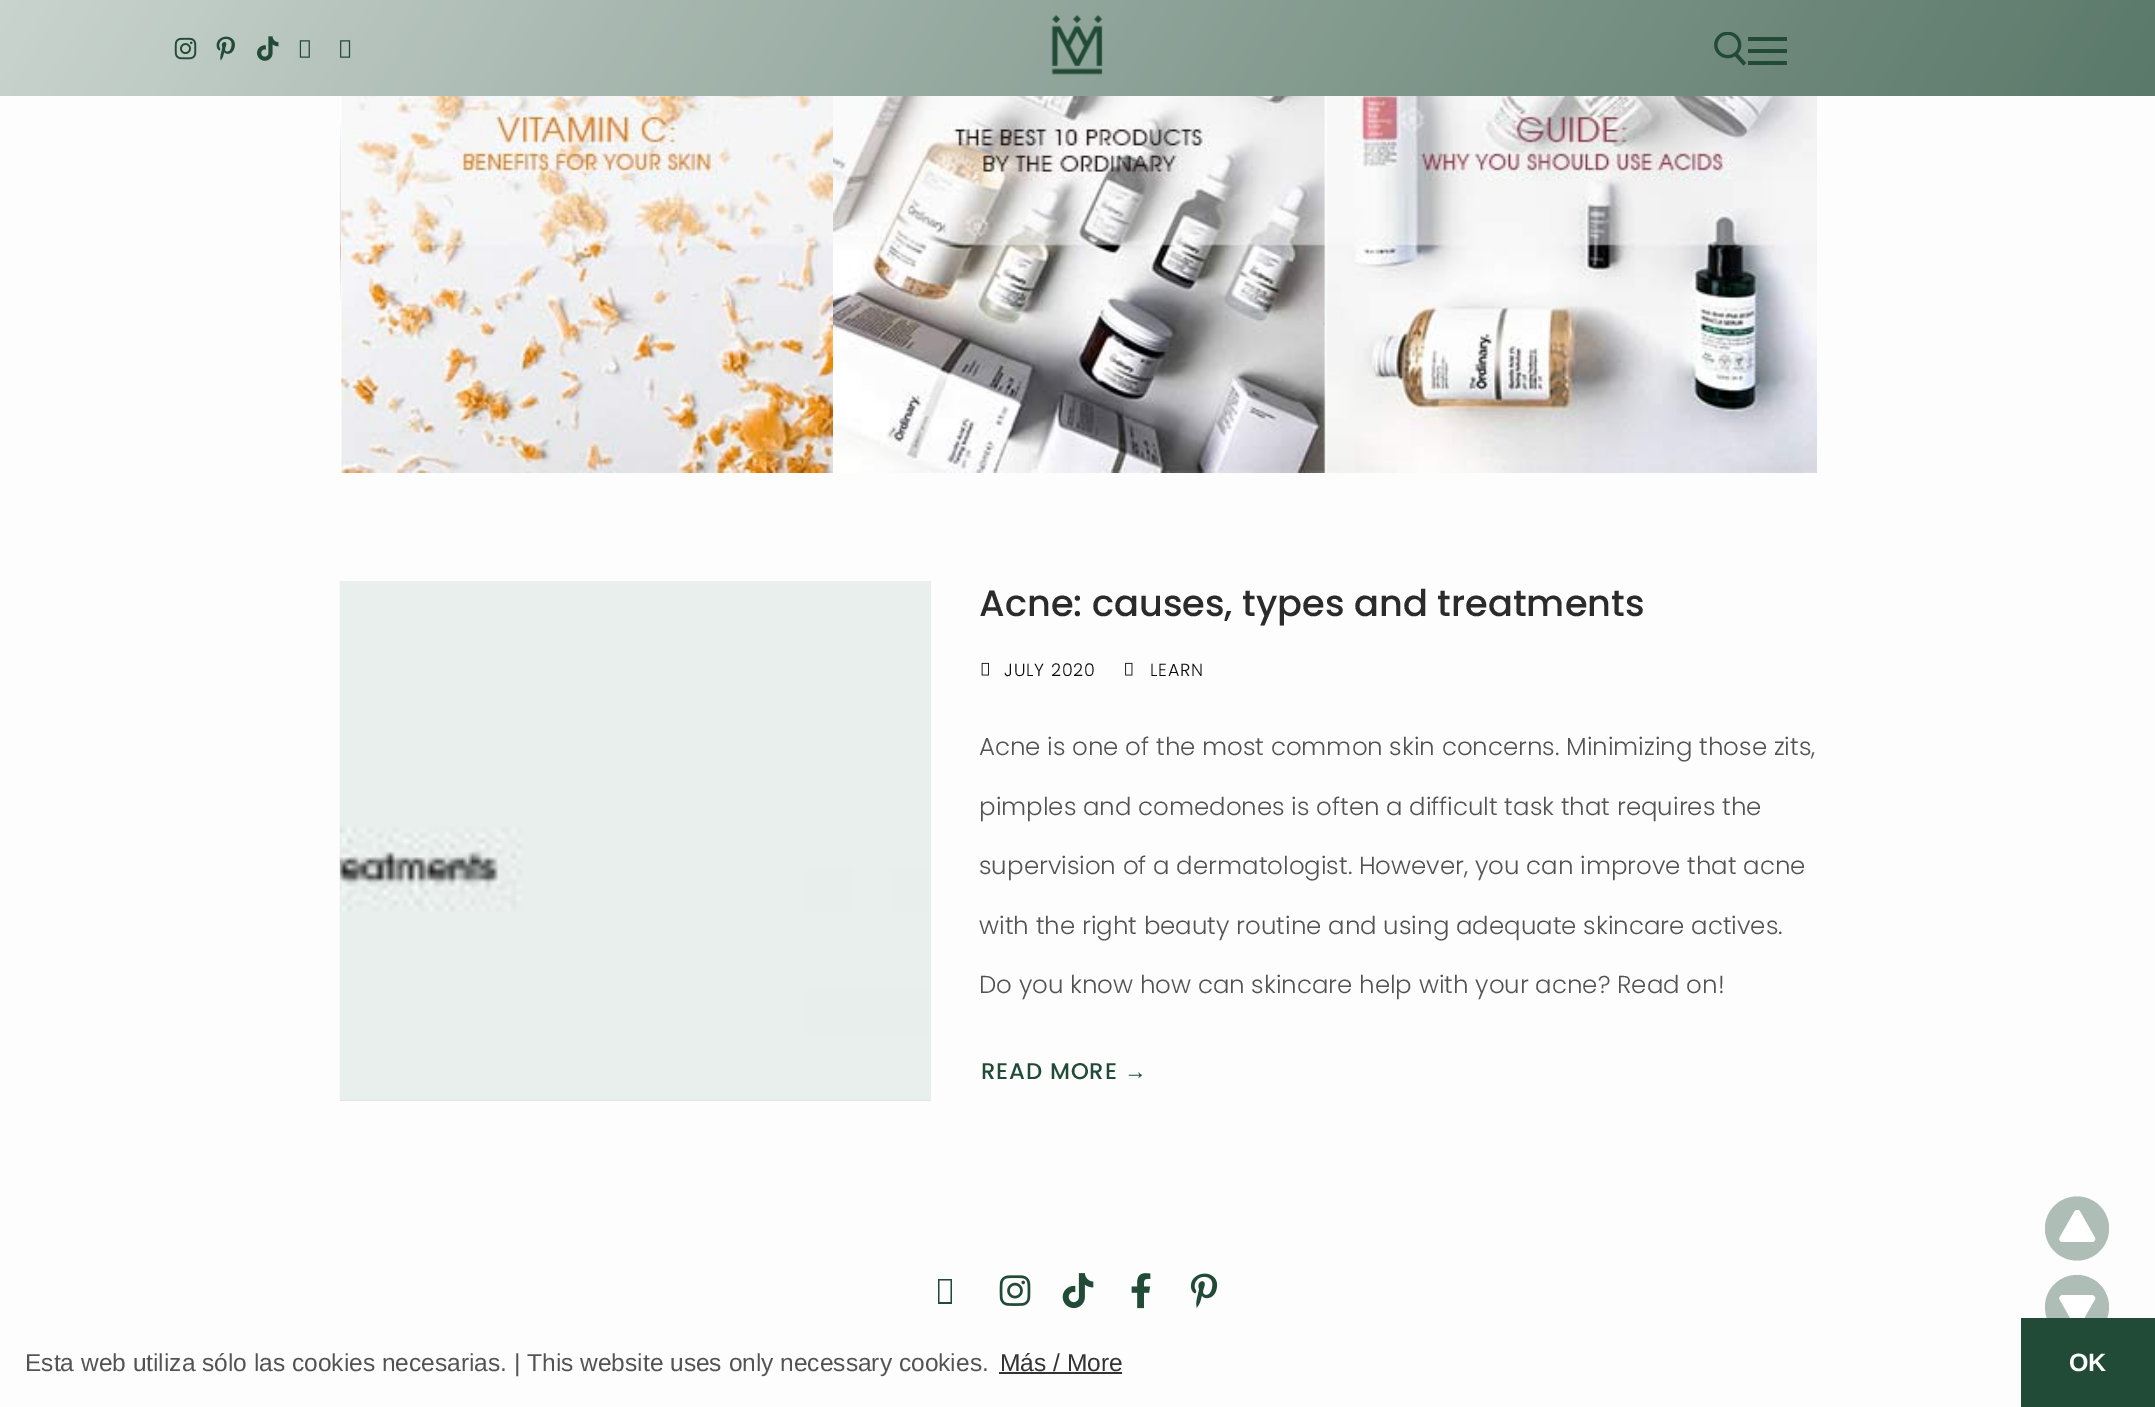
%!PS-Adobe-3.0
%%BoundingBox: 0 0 2155 1407
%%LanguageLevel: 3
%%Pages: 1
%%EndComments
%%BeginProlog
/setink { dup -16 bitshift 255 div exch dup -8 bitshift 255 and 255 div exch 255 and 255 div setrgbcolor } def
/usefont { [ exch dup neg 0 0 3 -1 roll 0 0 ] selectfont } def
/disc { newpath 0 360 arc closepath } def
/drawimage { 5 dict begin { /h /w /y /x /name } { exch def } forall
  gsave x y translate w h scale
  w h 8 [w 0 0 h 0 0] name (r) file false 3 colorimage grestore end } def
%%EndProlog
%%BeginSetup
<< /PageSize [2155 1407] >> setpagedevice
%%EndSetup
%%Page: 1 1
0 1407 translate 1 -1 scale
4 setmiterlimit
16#FDFDFD setink
0 0 2155 1407 rectfill
(img1.raw) 0 0 2155 96 drawimage
(img2.raw) 174 37 23 23 drawimage
(img3.raw) 216 36 19 25 drawimage
(img4.raw) 257 36 22 25 drawimage
(img5.raw) 299 40 11 18 drawimage
(img6.raw) 340 40 11 18 drawimage
(img7.raw) 1051 14 52 61 drawimage
(img8.raw) 1714 32 33 34 drawimage
[
    [1748 49 39 4 16#224B37]
    [1748 37 39 4 16#224B37]
    [1748 61 39 4 16#224B37]
] { aload pop setink rectfill } forall
(img12.raw) 340 123 1 178 drawimage
(img9.raw) 340 96 493 377 drawimage
(img10.raw) 833 96 493 377 drawimage
(img11.raw) 1326 96 491 377 drawimage
16#D5D5D5 setink
340 1100 591 1 rectfill
(img13.raw) 339 581 592 520 drawimage
/Poppins-Medium 36.75 usefont
16#2B2B2B setink
979 616 moveto (Acne: causes, types and treatments) show
(img14.raw) 981 662 8 14 drawimage
/Poppins-Light 17.5 usefont
16#0A0A0A setink
1004 676 moveto 0.9 0 (JULY 2020) ashow
(img15.raw) 1125 662 8 14 drawimage
1150 676 moveto 0.9 0 (LEARN) ashow
/Poppins-Light 24.5 usefont
16#535353 setink
[
    [(Acne is one of the most common skin concerns. Minimizing those zits,) 979 755]
    [(pimples and comedones is often a difficult task that requires the) 979 815]
    [(supervision of a dermatologist. However, you can improve that acne) 979 874]
    [(with the right beauty routine and using adequate skincare actives.) 979 934]
    [(Do you know how can skincare help with your acne? Read on!) 979 993]
] { aload pop moveto show } forall
/Poppins-Medium 22.75 usefont
16#224B37 setink
981 1079 moveto 0.9 0 (READ MORE) ashow
/LiberationSerif-Regular 22.75 usefont
1124 1079 moveto 0.9 0 (→) ashow
938 1304 moveto 938 1279 lineto 952 1279 lineto 952 1304 lineto closepath 939.5 1302 moveto 950.5 1302 lineto 950.5 1280.5 lineto 939.5 1280.5 lineto closepath fill
(img16.raw) 999 1275 32 31 drawimage
(img17.raw) 1062 1273 32 36 drawimage
(img18.raw) 1131 1273 20 36 drawimage
(img19.raw) 1190 1273 28 35 drawimage
16#AEBDB6 setink
2077 1228.5 32 disc fill
16#FFFFFF setink
2062.5 1242 moveto 2092 1242 lineto 2093 1242 2094 1241.5 2094.5 1240.5 curveto 2095.5 1239.5 2095.5 1238 2094.5 1237 curveto 2080 1211.5 lineto 2079.5 1210.5 2078.5 1210 2077 1210 curveto 2076 1210 2075 1210.5 2074.5 1211.5 curveto 2060 1237 lineto 2059 1238 2059 1239.5 2060 1240.5 curveto 2060.5 1241.5 2061.5 1242 2062.5 1242 curveto closepath fill
16#AEBDB6 setink
2077 1307 32 disc fill
16#FFFFFF setink
2092 1295 moveto 2062.5 1295 lineto 2061.5 1295 2060.5 1296 2060 1296.5 curveto 2059 1297.5 2059 1299 2060 1300 curveto 2074.5 1325.5 lineto 2075 1326.5 2076 1327 2077 1327 curveto 2078.5 1327 2079.5 1326.5 2080 1325.5 curveto 2094.5 1300 lineto 2095.5 1299 2095.5 1297.5 2094.5 1296.5 curveto 2094 1296 2093 1295 2092 1295 curveto closepath fill
/LiberationSans-Regular 24.5 usefont
16#535353 setink
25 1371 moveto (Esta web utiliza sólo las cookies necesarias. | This website uses only necessary cookies.) show
16#333333 setink
1000 1371 moveto (Más / More) show
999 1372 123 2 rectfill
16#224B37 setink
2021 1318 134 89 rectfill
/LiberationSans-Bold 25 usefont
16#FFFFFF setink
2069 1371 moveto (OK) show
showpage
%%EOF
